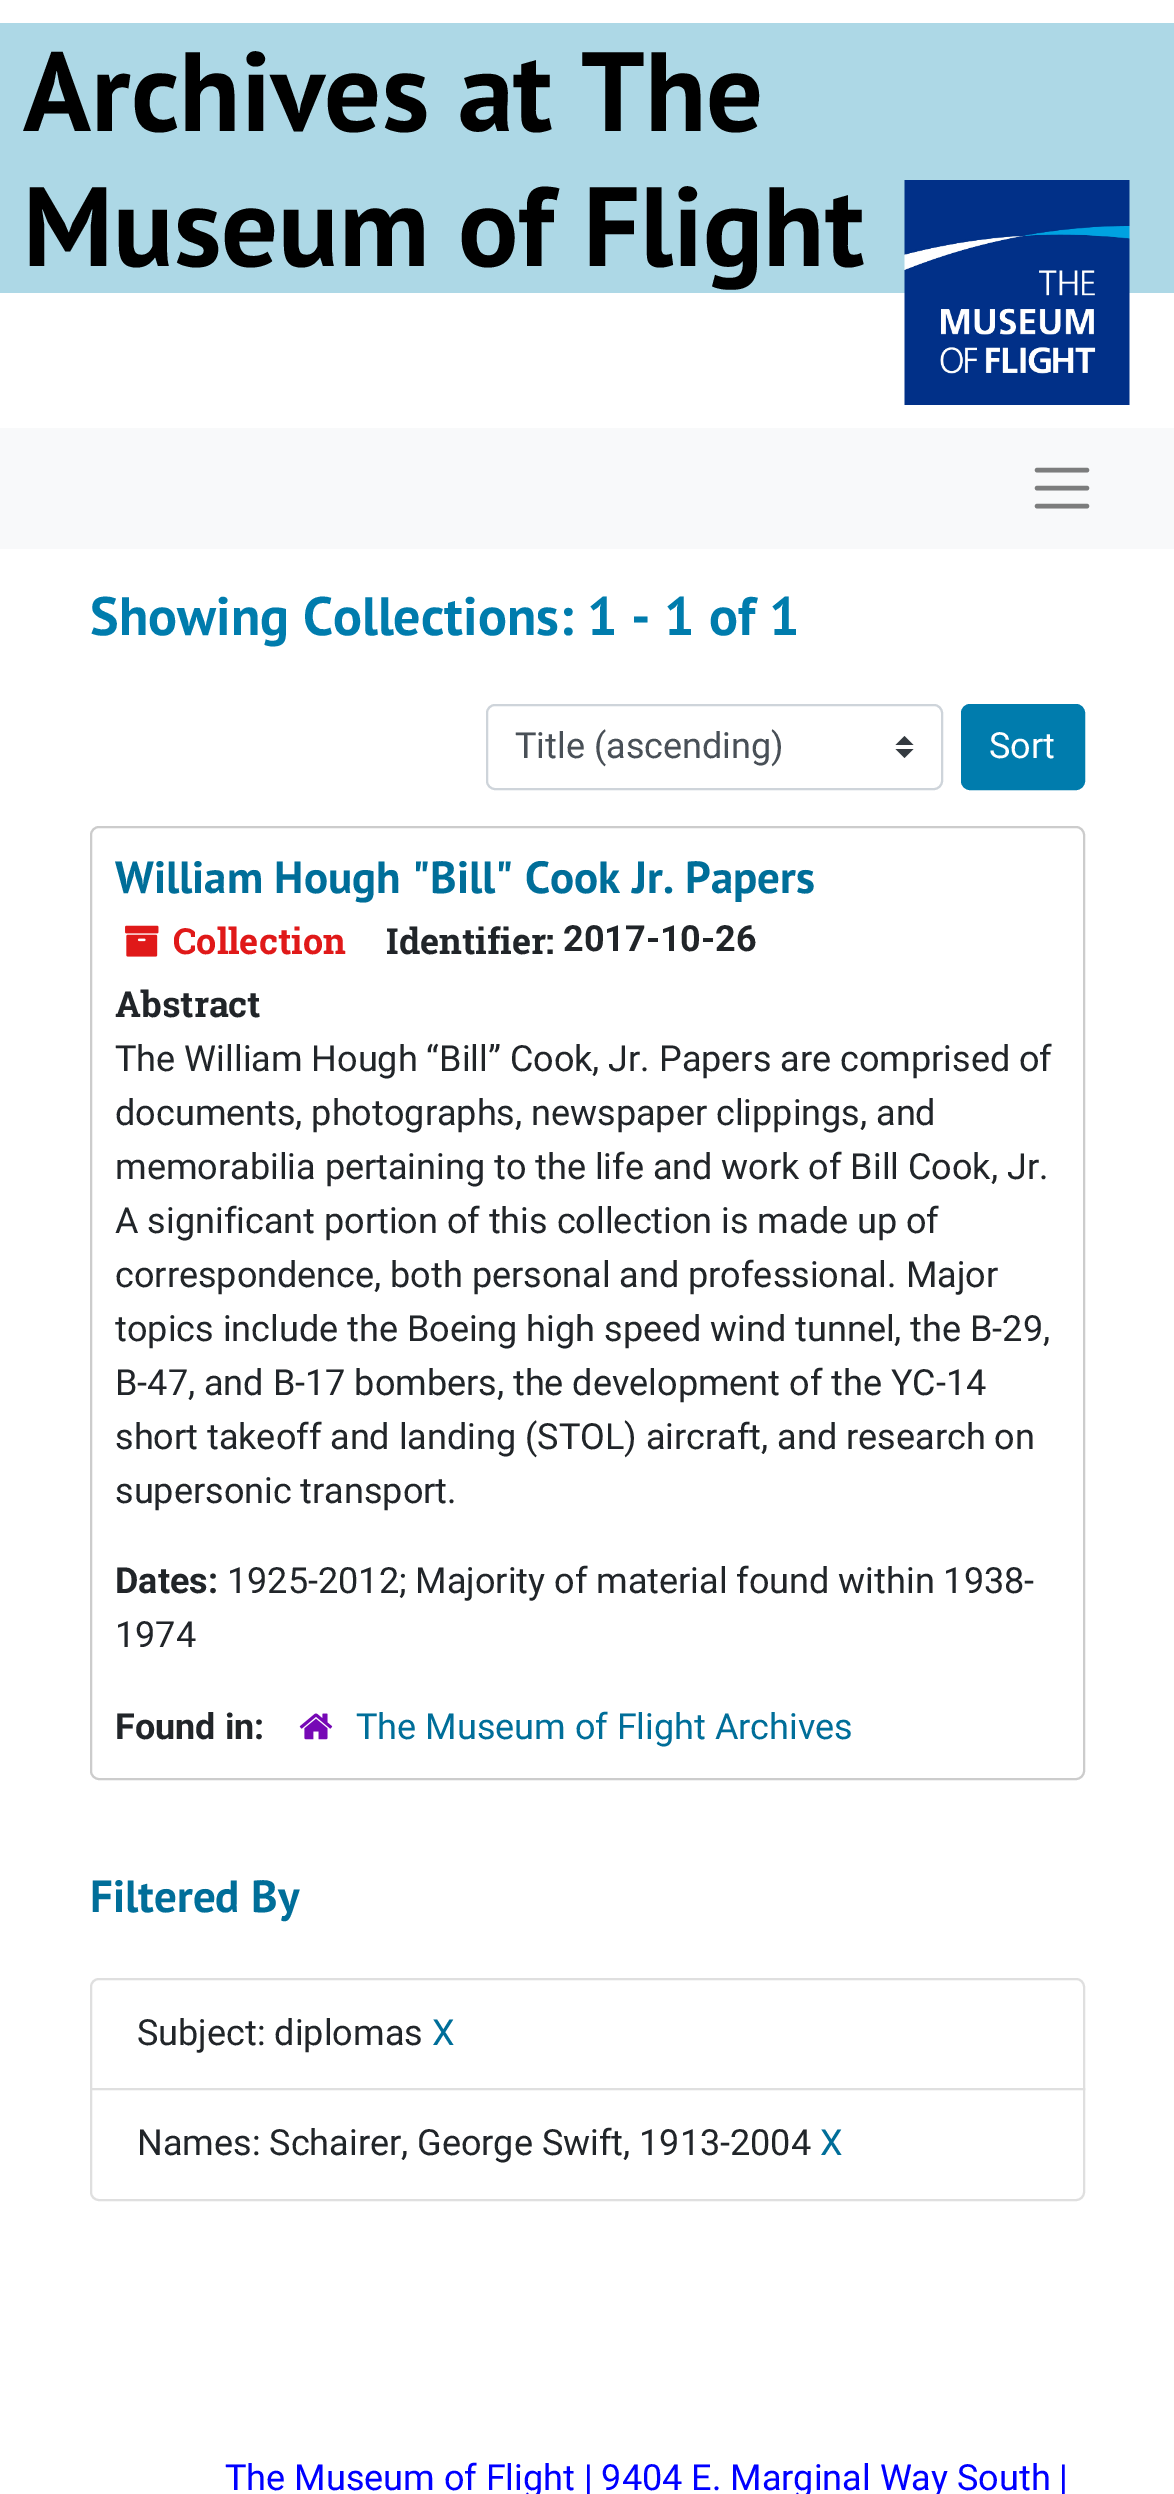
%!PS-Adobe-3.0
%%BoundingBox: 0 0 1174 2494
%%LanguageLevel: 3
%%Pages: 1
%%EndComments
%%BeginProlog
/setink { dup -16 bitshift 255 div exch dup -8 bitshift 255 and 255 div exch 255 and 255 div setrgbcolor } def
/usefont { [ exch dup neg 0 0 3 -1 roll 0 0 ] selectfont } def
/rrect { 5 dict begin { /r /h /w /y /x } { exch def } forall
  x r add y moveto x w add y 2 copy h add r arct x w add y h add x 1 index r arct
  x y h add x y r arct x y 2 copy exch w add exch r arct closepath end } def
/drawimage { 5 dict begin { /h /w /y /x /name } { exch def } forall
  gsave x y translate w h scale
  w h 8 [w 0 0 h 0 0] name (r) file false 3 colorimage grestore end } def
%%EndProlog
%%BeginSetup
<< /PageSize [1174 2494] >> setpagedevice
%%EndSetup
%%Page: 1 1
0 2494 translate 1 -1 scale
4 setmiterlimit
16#FFFFFF setink
0 0 1174 2494 rectfill
16#ADD8E6 setink
0 23 1174 270 rectfill
/PTSans-Bold 112.5 usefont
16#000000 setink
23 131 moveto (Archives at The) show
23 266 moveto (Museum of Flight) show
(img1.raw) 904 180 226 225 drawimage
16#F8F9FA setink
0 428 1174 121 rectfill
16#7C7D7D setink
4.5 setlinewidth
1 setlinecap
1037 470 moveto 1087 470 lineto 1037 488 moveto 1087 488 lineto 1037 506 moveto 1087 506 lineto stroke
/PTSans-Bold 54 usefont
16#007CAD setink
90 635 moveto (Showing Collections: 1 - 1 of 1) show
16#343A40 setink
904.5 736 moveto 895.5 745 lineto 913.5 745 lineto closepath 904.5 758 moveto 895.5 749 lineto 913.5 749 lineto closepath fill
16#CED4DA setink
2 setlinewidth
0 setlinecap
487 705 455 84 8 rrect stroke
/Roboto-Regular 36 usefont
16#495057 setink
515 758 moveto (Title \(ascending\)) show
16#007CAD setink
962 705 122 84 8 rrect gsave fill grestore
stroke
16#FFFFFF setink
989 758 moveto (Sort) show
16#CCCCCC setink
91 827 993 952 8 rrect stroke
/PTSans-Bold 45 usefont
16#006E99 setink
115 893 moveto (William Hough "Bill" Cook Jr. Papers) show
(img2.raw) 125 925 34 32 drawimage
/RobotoSlab-Bold 36 usefont
16#E01919 setink
173 954 moveto (Collection) show
16#212529 setink
386 954 moveto (Identifier:) show
/Roboto-Bold 36 usefont
563 951 moveto (2017-10-26) show
/RobotoSlab-Bold 36 usefont
115 1017 moveto (Abstract) show
/Roboto-Regular 36 usefont
[
    [(The William Hough “Bill” Cook, Jr. Papers are comprised of) 115 1071]
    [(documents, photographs, newspaper clippings, and) 115 1125]
    [(memorabilia pertaining to the life and work of Bill Cook, Jr.) 115 1179]
    [(A significant portion of this collection is made up of) 115 1233]
    [(correspondence, both personal and professional. Major) 115 1287]
    [(topics include the Boeing high speed wind tunnel, the B-29,) 115 1341]
    [(B-47, and B-17 bombers, the development of the YC-14) 115 1395]
    [(short takeoff and landing \(STOL\) aircraft, and research on) 115 1449]
    [(supersonic transport.) 115 1503]
] { aload pop moveto show } forall
/Roboto-Bold 36 usefont
115 1593 moveto (Dates:) show
/Roboto-Regular 36 usefont
227 1593 moveto (1925-2012; Majority of material found within 1938-) show
115 1647 moveto (1974) show
/Roboto-Bold 36 usefont
115 1739 moveto (Found in:) show
(img3.raw) 299 1713 34 27 drawimage
/Roboto-Regular 36 usefont
16#006E99 setink
356 1739 moveto (The Museum of Flight Archives) show
/PTSans-Bold 45 usefont
90 1912 moveto (Filtered By) show
16#DFDFDF setink
99 1979 moveto 1076 1979 lineto 1080.5 1979 1084 1982.5 1084 1987 curveto 1084 2089 lineto 91 2089 lineto 91 1987 lineto 91 1982.5 94.5 1979 99 1979 curveto closepath stroke
/Roboto-Regular 36 usefont
16#212529 setink
137 2045 moveto (Subject: diplomas) show
16#006E99 setink
432 2045 moveto (X) show
16#FFFFFF setink
91 2089 moveto 1084 2089 lineto 1084 2192 lineto 1084 2196.5 1080.5 2200 1076 2200 curveto 99 2200 lineto 94.5 2200 91 2196.5 91 2192 curveto closepath gsave fill grestore
16#DFDFDF setink
stroke
16#212529 setink
137 2155 moveto (Names: Schairer, George Swift, 1913-2004) show
16#006E99 setink
820 2155 moveto (X) show
16#0000FF setink
225 2490 moveto (The Museum of Flight | 9404 E. Marginal Way South |) show
showpage
%%EOF
